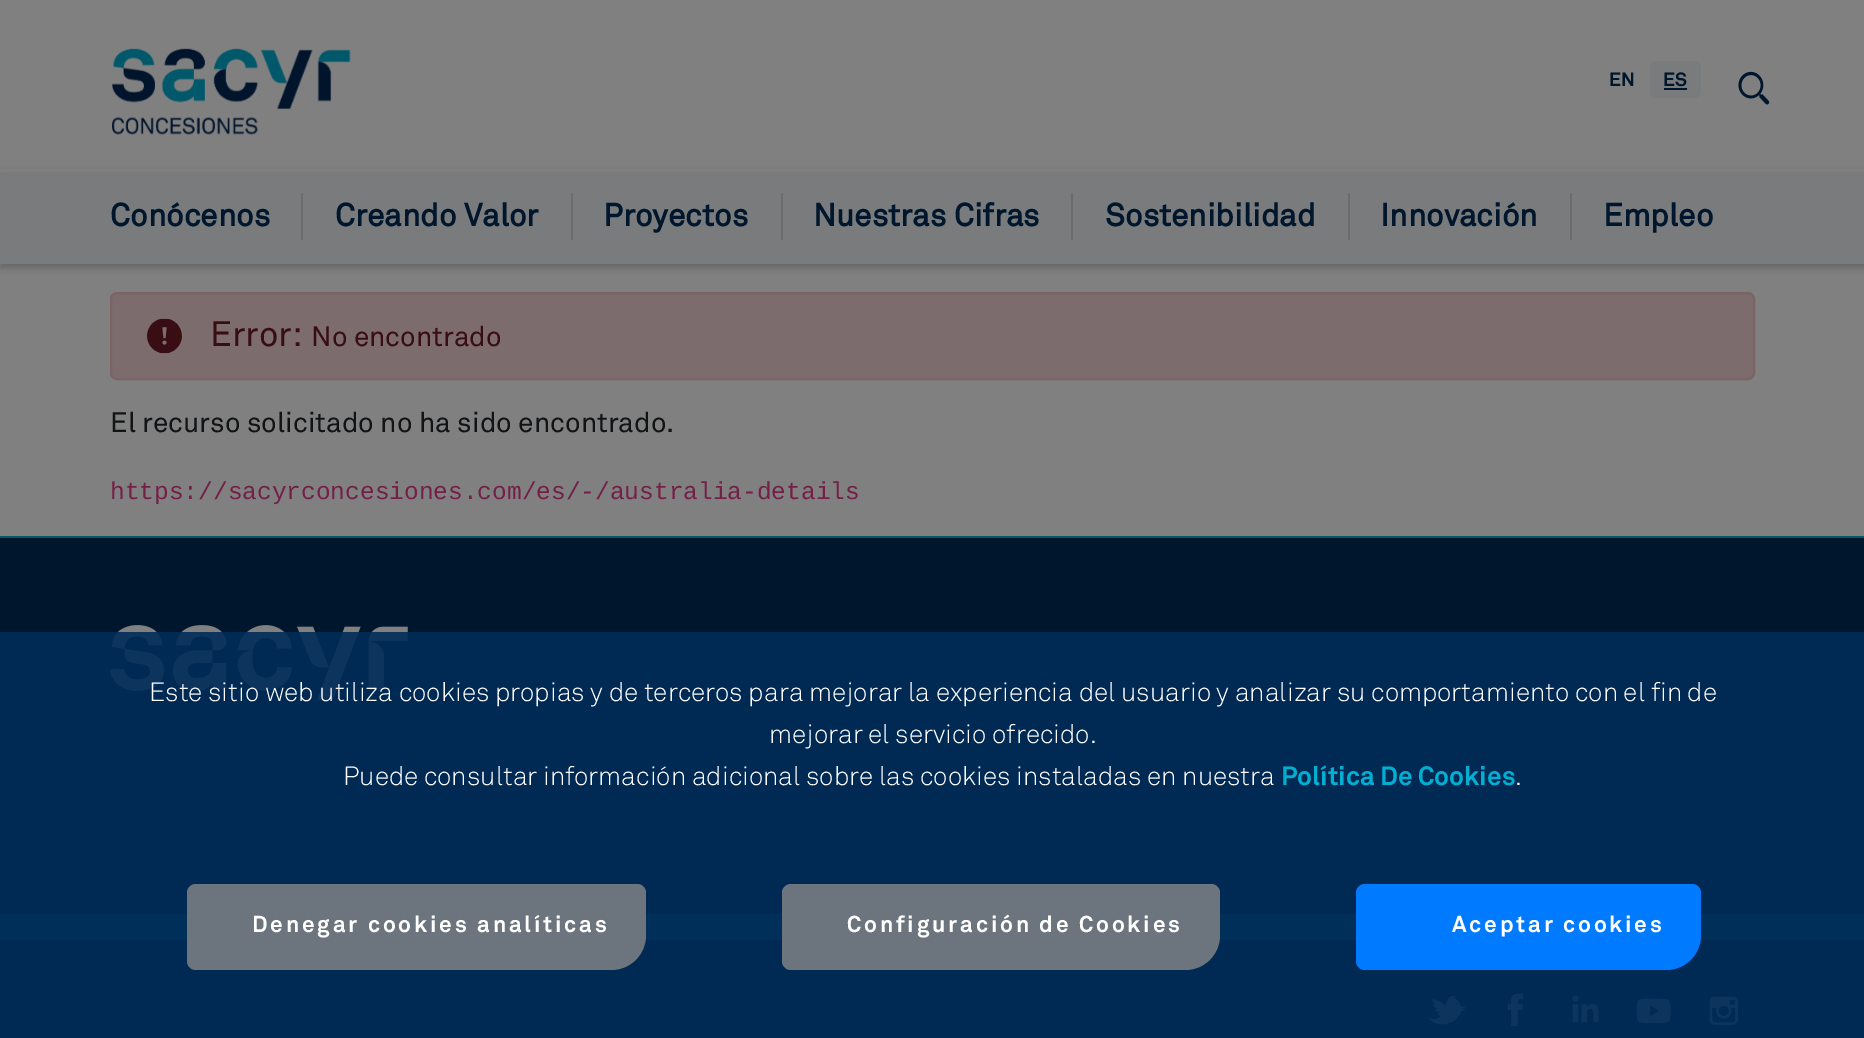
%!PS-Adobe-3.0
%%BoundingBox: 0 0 1864 1038
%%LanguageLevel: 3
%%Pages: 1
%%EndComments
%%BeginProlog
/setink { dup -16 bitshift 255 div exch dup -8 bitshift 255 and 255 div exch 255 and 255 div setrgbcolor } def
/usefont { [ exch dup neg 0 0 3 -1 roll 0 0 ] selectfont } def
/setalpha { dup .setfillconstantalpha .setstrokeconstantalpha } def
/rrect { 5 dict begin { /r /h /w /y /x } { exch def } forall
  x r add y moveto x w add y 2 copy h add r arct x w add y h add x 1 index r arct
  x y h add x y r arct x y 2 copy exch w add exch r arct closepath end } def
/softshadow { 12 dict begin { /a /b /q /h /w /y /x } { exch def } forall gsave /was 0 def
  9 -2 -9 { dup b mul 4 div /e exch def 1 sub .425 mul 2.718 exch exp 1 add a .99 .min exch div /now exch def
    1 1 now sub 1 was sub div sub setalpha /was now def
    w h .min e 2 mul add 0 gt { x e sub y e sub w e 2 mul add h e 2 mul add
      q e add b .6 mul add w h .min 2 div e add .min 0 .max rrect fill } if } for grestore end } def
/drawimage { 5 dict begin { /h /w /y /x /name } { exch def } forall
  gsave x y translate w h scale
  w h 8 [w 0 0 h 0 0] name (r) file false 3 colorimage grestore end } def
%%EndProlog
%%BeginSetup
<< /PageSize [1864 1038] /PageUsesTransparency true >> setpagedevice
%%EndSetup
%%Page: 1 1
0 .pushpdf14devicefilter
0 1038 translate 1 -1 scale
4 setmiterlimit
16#808080 setink
0 0 1864 1038 rectfill
16#000000 setink
0 173 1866 95 0 3.5 0.2 softshadow
16#808080 setink
0 169 1864 3 rectfill
(img1.raw) 112 48 239 87 drawimage
/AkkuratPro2-Bold 19 usefont
16#00162C setink
1609 86 moveto (EN) show
16#797B7C setink
1650 61 51 37 7 rrect fill
16#00162C setink
1663 86 moveto (ES) show
1664 88 23 2 rectfill
(img2.raw) 1738 71 32 34 drawimage
16#797B7C setink
0 172 1864 92 rectfill
/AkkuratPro-Bold 31.5 usefont
16#00162C setink
110 226 moveto (Conócenos) show
16#6C6C6C setink
301 193 2 47 rectfill
16#00162C setink
335 226 moveto (Creando Valor) show
16#6C6C6C setink
571 193 2 47 rectfill
16#00162C setink
603 226 moveto (Proyectos) show
16#6C6C6C setink
781 193 2 47 rectfill
16#00162C setink
813 226 moveto (Nuestras Cifras) show
16#6C6C6C setink
1071 193 2 47 rectfill
16#00162C setink
1105 226 moveto (Sostenibilidad) show
16#6C6C6C setink
1348 193 2 47 rectfill
16#00162C setink
1380 226 moveto (Innovación) show
16#6C6C6C setink
1570 193 2 47 rectfill
16#00162C setink
1603 226 moveto (Empleo) show
16#7C6C6D setink
111 293 1643 86 6 rrect gsave fill grestore
16#7B6366 setink
2 setlinewidth
stroke
(img3.raw) 147 318 35 36 drawimage
/AkkuratPro-Regular 35 usefont
16#390E12 setink
210 346 moveto (Error:) show
/AkkuratPro-Regular 28 usefont
311 346 moveto (No encontrado) show
16#111315 setink
110 432 moveto (El recurso solicitado no ha sido encontrado.) show
/LiberationMono-Regular 24.5 usefont
16#741F46 setink
110 499 moveto (https://sacyrconcesiones.com/es/-/australia-details) show
16#00162C setink
0 538 1864 500 rectfill
16#005869 setink
0 536 1864 2 rectfill
(img4.raw) 110 625 298 75 drawimage
0 914 1864 26 rectfill
(img5.raw) 1426 995 40 30 drawimage
(img6.raw) 1507 993 17 33 drawimage
(img7.raw) 1572 995 27 28 drawimage
(img8.raw) 1636 998 35 26 drawimage
(img9.raw) 1709 996 29 29 drawimage
0.9 setalpha
16#002C58 setink
0 632 1864 406 rectfill
/AkkuratPro-Light 26.25 usefont
1 setalpha
16#FFFFFF setink
[
    [(Este sitio web utiliza cookies propias y de terceros para mejorar la experiencia del usuario y analizar su comportamiento con el fin de) 149 701]
    [(mejorar el servicio ofrecido.) 769 743]
    [(Puede consultar información adicional sobre las cookies instaladas en nuestra) 343 785]
] { aload pop moveto show } forall
/AkkuratPro2-Bold 26.25 usefont
16#00AFD2 setink
1281 785 moveto (Política De Cookies) show
/AkkuratPro-Light 26.25 usefont
16#FFFFFF setink
1515 785 moveto (.) show
16#6C757D setink
196 884 moveto 637 884 lineto 642 884 646 888 646 893 curveto 646 935 lineto 646 954.5 630.5 970 611 970 curveto 196 970 lineto 191 970 187 966 187 961 curveto 187 893 lineto 187 888 191 884 196 884 curveto closepath fill
/AkkuratPro2-Bold 22.75 usefont
16#FFFFFF setink
252 932 moveto 2.8 0 (Denegar cookies analíticas) ashow
16#6C757D setink
791 884 moveto 1211 884 lineto 1216 884 1220 888 1220 893 curveto 1220 935 lineto 1220 954.5 1204.5 970 1185 970 curveto 791 970 lineto 786 970 782 966 782 961 curveto 782 893 lineto 782 888 786 884 791 884 curveto closepath fill
16#FFFFFF setink
847 932 moveto 2.8 0 (Configuración de Cookies) ashow
16#007BFF setink
1365 884 moveto 1692 884 lineto 1697 884 1701 888 1701 893 curveto 1701 935 lineto 1701 954.5 1685.5 970 1666 970 curveto 1365 970 lineto 1360 970 1356 966 1356 961 curveto 1356 893 lineto 1356 888 1360 884 1365 884 curveto closepath fill
16#FFFFFF setink
1452 932 moveto 2.8 0 (Aceptar cookies) ashow
.poppdf14devicefilter showpage
%%EOF
